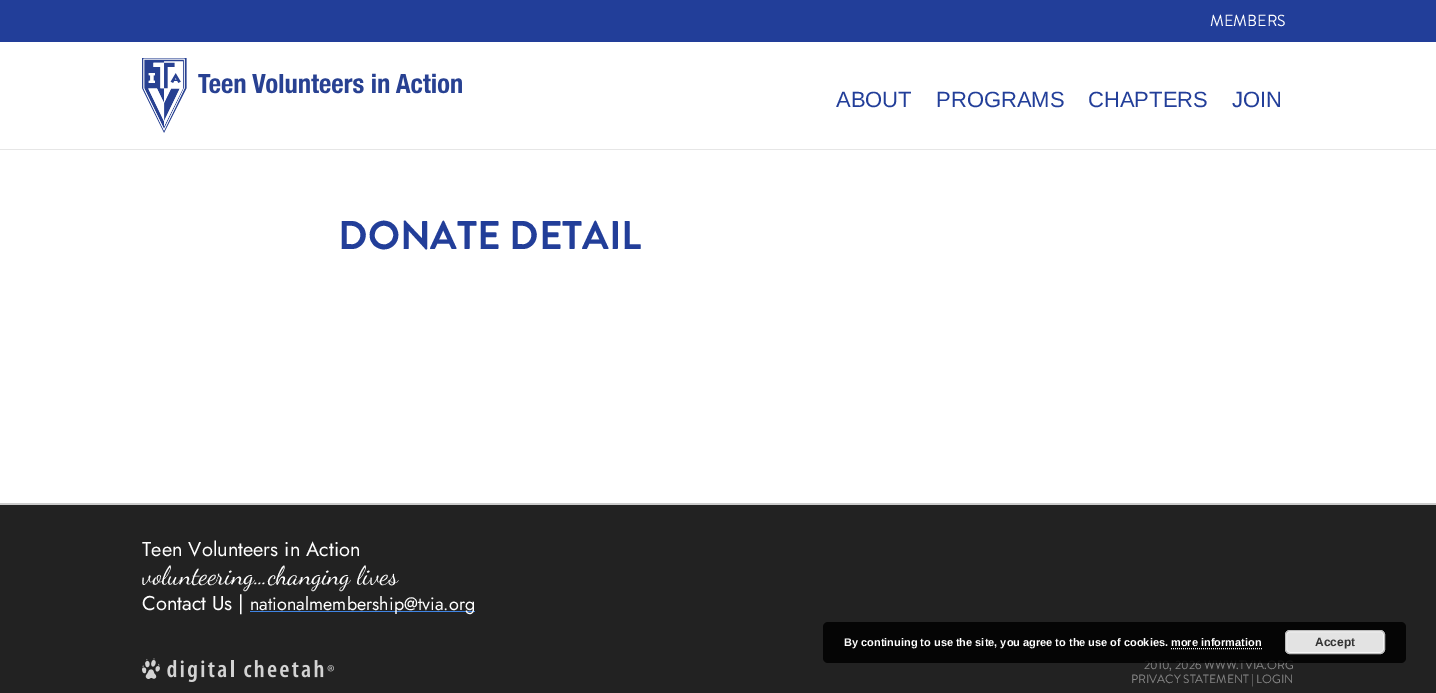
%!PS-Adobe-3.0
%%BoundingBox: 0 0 1436 693
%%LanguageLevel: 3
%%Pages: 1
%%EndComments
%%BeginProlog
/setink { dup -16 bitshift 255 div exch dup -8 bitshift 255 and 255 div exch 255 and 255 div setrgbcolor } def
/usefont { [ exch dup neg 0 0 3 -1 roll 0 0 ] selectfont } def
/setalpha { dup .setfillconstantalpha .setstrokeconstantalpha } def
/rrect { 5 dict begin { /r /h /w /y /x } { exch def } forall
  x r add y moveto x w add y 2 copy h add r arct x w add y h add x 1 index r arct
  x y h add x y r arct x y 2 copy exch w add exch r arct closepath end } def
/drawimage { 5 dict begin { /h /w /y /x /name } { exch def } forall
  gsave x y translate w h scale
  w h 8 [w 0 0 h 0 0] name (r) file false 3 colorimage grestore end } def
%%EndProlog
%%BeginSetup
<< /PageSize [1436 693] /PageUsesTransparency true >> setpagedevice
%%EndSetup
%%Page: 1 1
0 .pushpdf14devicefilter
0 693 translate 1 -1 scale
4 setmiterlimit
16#FFFFFF setink
0 0 1436 693 rectfill
16#E6E6E6 setink
0 149 1436 1 rectfill
16#223E99 setink
0 0 1436 42 rectfill
/BrandonGrotesque-Regular 16 usefont
16#FFFFFF setink
1210 26 moveto (MEMBERS) show
(img1.raw) 142 58 320 75 drawimage
/LiberationSans-Regular 22 usefont
16#223E99 setink
[
    [(ABOUT) 836 107]
    [(PROGRAMS) 936 107]
    [(CHAPTERS) 1088 107]
    [(JOIN) 1232 107]
] { aload pop moveto show } forall
/BrandonGrotesque-Bold 40 usefont
338 249 moveto (DONATE DETAIL) show
16#CCCCCC setink
0 503 1436 2 rectfill
16#222222 setink
0 505 1436 188 rectfill
/Jost-Regular 20 usefont
16#FFFFFF setink
142 556 moveto (Teen Volunteers in Action) show
/DancingScript-Regular 26 usefont
142 584 moveto (volunteering…changing lives) show
/Jost-Regular 20 usefont
142 610 moveto (Contact Us |) show
16#3F84E4 setink
250 611 225 1 rectfill
/Jost-Regular 18 usefont
16#FFFFFF setink
250 610 moveto (nationalmembership@tvia.org) show
(img2.raw) 142 658 192 24 drawimage
/BrandonGrotesque-Regular 12 usefont
16#888888 setink
1144 669 moveto (2010, 2026 WWW.TVIA.ORG) show
1131 683 moveto (PRIVACY STATEMENT | LOGIN) show
0.85 setalpha
16#000000 setink
823 622 583 41 5 rrect fill
/LiberationSans-Bold 11 usefont
1 setalpha
16#FFFFFF setink
844 646 moveto (By continuing to use the site, you agree to the use of cookies. more information) show
16#E3E3E3 setink
1285 630 100 24 5 rrect fill
16#F6F6F6 setink
1286.5 631.5 97 21 3.5 rrect stroke
16#BBBBBB setink
1285.5 630.5 99 23 4.5 rrect stroke
/LiberationSans-Bold 12 usefont
16#333333 setink
1315 646 moveto (Accept) show
16#FFFFFF setink
[1 1] 0 setdash
1171 648.5 moveto 1262 648.5 lineto stroke
.poppdf14devicefilter showpage
%%EOF
